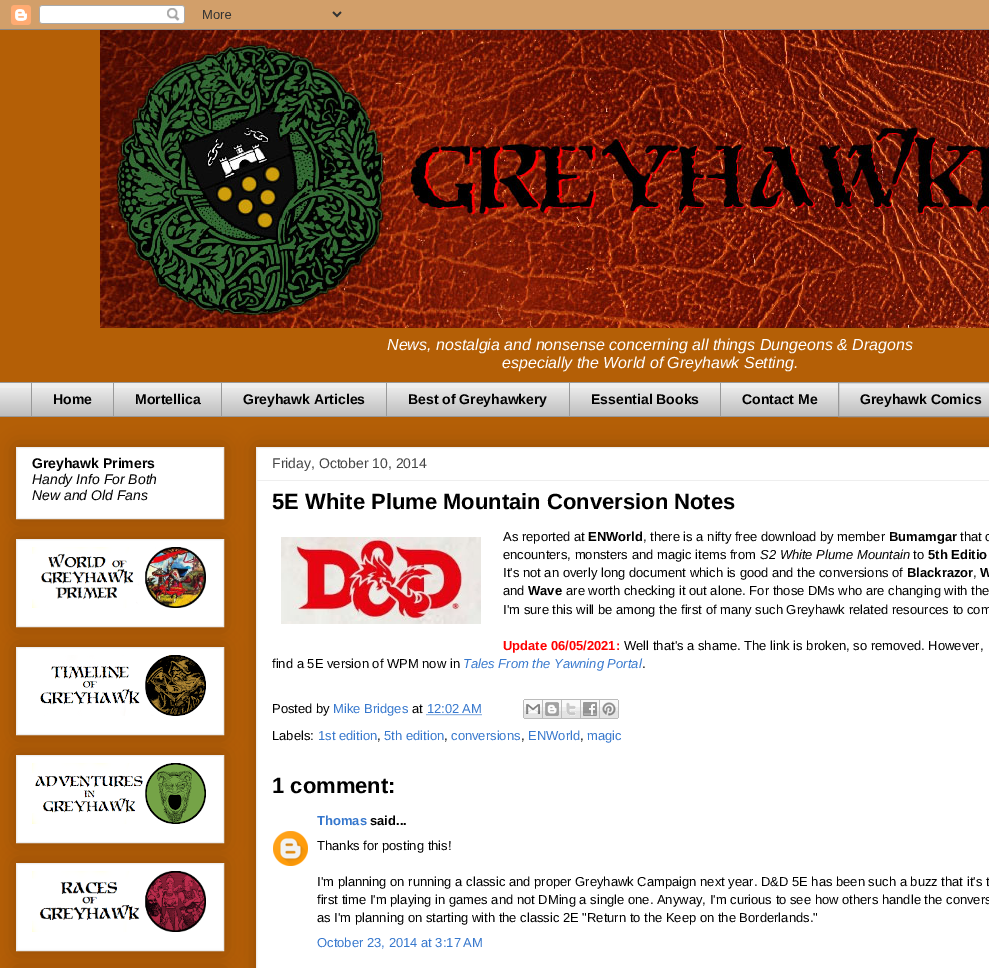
%!PS-Adobe-3.0
%%BoundingBox: 0 0 989 968
%%LanguageLevel: 3
%%Pages: 1
%%EndComments
%%BeginProlog
/setink { dup -16 bitshift 255 div exch dup -8 bitshift 255 and 255 div exch 255 and 255 div setrgbcolor } def
/usefont { [ exch dup neg 0 0 3 -1 roll 0 0 ] selectfont } def
/setalpha { dup .setfillconstantalpha .setstrokeconstantalpha } def
/rrect { 5 dict begin { /r /h /w /y /x } { exch def } forall
  x r add y moveto x w add y 2 copy h add r arct x w add y h add x 1 index r arct
  x y h add x y r arct x y 2 copy exch w add exch r arct closepath end } def
/softshadow { 12 dict begin { /a /b /q /h /w /y /x } { exch def } forall gsave /was 0 def
  9 -2 -9 { dup b mul 4 div /e exch def 1 sub .425 mul 2.718 exch exp 1 add a .99 .min exch div /now exch def
    1 1 now sub 1 was sub div sub setalpha /was now def
    w h .min e 2 mul add 0 gt { x e sub y e sub w e 2 mul add h e 2 mul add
      q e add b .6 mul add w h .min 2 div e add .min 0 .max rrect fill } if } for grestore end } def
/drawimage { 5 dict begin { /h /w /y /x /name } { exch def } forall
  gsave x y translate w h scale
  w h 8 [w 0 0 h 0 0] name (r) file false 3 colorimage grestore end } def
%%EndProlog
%%BeginSetup
<< /PageSize [989 968] /PageUsesTransparency true >> setpagedevice
%%EndSetup
%%Page: 1 1
0 .pushpdf14devicefilter
0 968 translate 1 -1 scale
4 setmiterlimit
16#B45F06 setink
0 0 989 968 rectfill
(img1.raw) 0 0 989 30 drawimage
(img2.raw) 100 30 889 298 drawimage
/LiberationSans-Italic 16 usefont
16#FFFFFF setink
387 350 moveto (News, nostalgia and nonsense concerning all things Dungeons & Dragons) show
502 368 moveto (especially the World of Greyhawk Setting.) show
16#EEEEEE setink
0 383 989 33 rectfill
(img3.raw) 0 388 989 28 drawimage
16#999999 setink
0 382 838 1 rectfill
31 382 1 35 rectfill
/LiberationSans-Bold 14 usefont
16#000000 setink
53 404 moveto (Home) show
16#999999 setink
113 382 1 35 rectfill
16#000000 setink
135 404 moveto (Mortellica) show
16#999999 setink
221 382 1 35 rectfill
16#000000 setink
243 404 moveto (Greyhawk Articles) show
16#999999 setink
386 382 1 35 rectfill
16#000000 setink
408 404 moveto (Best of Greyhawkery) show
16#999999 setink
569 382 1 35 rectfill
16#000000 setink
591 404 moveto (Essential Books) show
16#999999 setink
720 382 1 35 rectfill
16#000000 setink
742 404 moveto (Contact Me) show
16#999999 setink
838.5 382.5 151 34 rectstroke
16#000000 setink
860 404 moveto (Greyhawk Comics) show
16#999999 setink
0 416 838 1 rectfill
16#000000 setink
16 447 208 72 0 10 0.2 softshadow
16#FFFFFF setink
16.5 447.5 moveto 223.5 447.5 lineto 223.5 518.5 lineto 16.5 518.5 lineto closepath gsave fill grestore
16#EEEEEE setink
stroke
16#000000 setink
32 468 moveto (Greyhawk Primers) show
/LiberationSans-Italic 14 usefont
32 484 moveto (Handy Info For Both) show
32 500 moveto (New and Old Fans) show
16 539 208 88 0 10 0.2 softshadow
16#FFFFFF setink
16.5 539.5 moveto 223.5 539.5 lineto 223.5 626.5 lineto 16.5 626.5 lineto closepath gsave fill grestore
16#EEEEEE setink
stroke
(img4.raw) 32 547 174 61 drawimage
16#000000 setink
16 647 208 88 0 10 0.2 softshadow
16#FFFFFF setink
16.5 647.5 moveto 223.5 647.5 lineto 223.5 734.5 lineto 16.5 734.5 lineto closepath gsave fill grestore
16#EEEEEE setink
stroke
(img5.raw) 40 655 166 61 drawimage
16#000000 setink
16 755 208 88 0 10 0.2 softshadow
16#FFFFFF setink
16.5 755.5 moveto 223.5 755.5 lineto 223.5 842.5 lineto 16.5 842.5 lineto closepath gsave fill grestore
16#EEEEEE setink
stroke
(img6.raw) 32 763 174 61 drawimage
16#000000 setink
16 863 208 88 0 10 0.2 softshadow
16#FFFFFF setink
16.5 863.5 moveto 223.5 863.5 lineto 223.5 950.5 lineto 16.5 950.5 lineto closepath gsave fill grestore
16#EEEEEE setink
stroke
(img7.raw) 32 871 174 61 drawimage
16#000000 setink
16 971 208 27 0 10 0.2 softshadow
256 447 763 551 0 10 0.2 softshadow
16#FFFFFF setink
256.5 447.5 moveto 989.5 447.5 lineto 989.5 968.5 lineto 256.5 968.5 lineto closepath gsave fill grestore
16#EEEEEE setink
stroke
/LiberationSans-Regular 14 usefont
16#444444 setink
272 468 moveto (Friday, October 10, 2014) show
16#EEEEEE setink
257 480 732 1 rectfill
/LiberationSans-Bold 22 usefont
16#000000 setink
272 509 moveto (5E White Plume Mountain Conversion Notes) show
(img8.raw) 281 537 200 87 drawimage
/LiberationSans-Regular 13 usefont
503 541 moveto (As reported at) show
/LiberationSans-Bold 13 usefont
588 541 moveto (ENWorld) show
/LiberationSans-Regular 13 usefont
643 541 moveto (, there is a nifty free download by member) show
/LiberationSans-Bold 13 usefont
889 541 moveto (Bumamgar) show
/LiberationSans-Regular 13 usefont
960 541 moveto (that c) show
503 559 moveto (encounters, monsters and magic items from) show
/LiberationSans-Italic 13 usefont
760 559 moveto (S2 White Plume Mountain) show
/LiberationSans-Regular 13 usefont
913 559 moveto (to) show
/LiberationSans-Bold 13 usefont
928 559 moveto (5th Editio) show
/LiberationSans-Regular 13 usefont
503 577 moveto (It's not an overly long document which is good and the conversions of) show
/LiberationSans-Bold 13 usefont
907 577 moveto (Blackrazor) show
/LiberationSans-Regular 13 usefont
973 577 moveto (,) show
/LiberationSans-Bold 13 usefont
980 577 moveto (W) show
/LiberationSans-Regular 13 usefont
503 595 moveto (and) show
/LiberationSans-Bold 13 usefont
528 595 moveto (Wave) show
/LiberationSans-Regular 13 usefont
566 595 moveto (are worth checking it out alone. For those DMs who are changing with the) show
503 614 moveto (I'm sure this will be among the first of many such Greyhawk related resources to com) show
/LiberationSans-Bold 13 usefont
16#FF0000 setink
503 650 moveto (Update 06/05/2021:) show
/LiberationSans-Regular 13 usefont
16#000000 setink
624 650 moveto (Well that's a shame. The link is broken, so removed. However,) show
272 668 moveto (find a 5E version of WPM now in) show
/LiberationSans-Italic 13 usefont
16#3778CD setink
463 668 moveto (Tales From the Yawning Portal) show
/LiberationSans-Regular 13 usefont
16#000000 setink
642 668 moveto (.) show
272 713 moveto (Posted by) show
16#3778CD setink
333 713 moveto (Mike Bridges) show
16#000000 setink
412 713 moveto (at) show
16#3778CD setink
427 713 moveto (12:02 AM) show
[1 1] 0 setdash
426.5 714.5 moveto 481.5 714.5 lineto stroke
(img9.raw) 523 699 20 20 drawimage
(img10.raw) 543 699 19 20 drawimage
(img11.raw) 562 699 19 20 drawimage
(img12.raw) 581 699 19 20 drawimage
(img13.raw) 600 699 19 20 drawimage
16#000000 setink
272 740 moveto (Labels:) show
16#3778CD setink
318 740 moveto (1st edition) show
16#000000 setink
377 740 moveto (,) show
16#3778CD setink
384 740 moveto (5th edition) show
16#000000 setink
444 740 moveto (,) show
16#3778CD setink
451 740 moveto (conversions) show
16#000000 setink
521 740 moveto (,) show
16#3778CD setink
528 740 moveto (ENWorld) show
16#000000 setink
580 740 moveto (,) show
16#3778CD setink
587 740 moveto (magic) show
/LiberationSans-Bold 22 usefont
16#000000 setink
272 793 moveto (1 comment:) show
/LiberationSans-Bold 13 usefont
16#3778CD setink
317 825 moveto (Thomas) show
16#000000 setink
370 825 moveto (said...) show
(img14.raw) 273 831 35 35 drawimage
/LiberationSans-Regular 13 usefont
[
    [(Thanks for posting this!) 317 850]
    [(I'm planning on running a classic and proper Greyhawk Campaign next year. D&D 5E has been such a buzz that it's t) 317 886]
    [(first time I'm playing in games and not DMing a single one. Anyway, I'm curious to see how others handle the convers) 317 904]
    [(as I'm planning on starting with the classic 2E "Return to the Keep on the Borderlands.") 317 922]
] { aload pop moveto show } forall
16#3778CD setink
317 947 moveto (October 23, 2014 at 3:17 AM) show
.poppdf14devicefilter showpage
%%EOF
